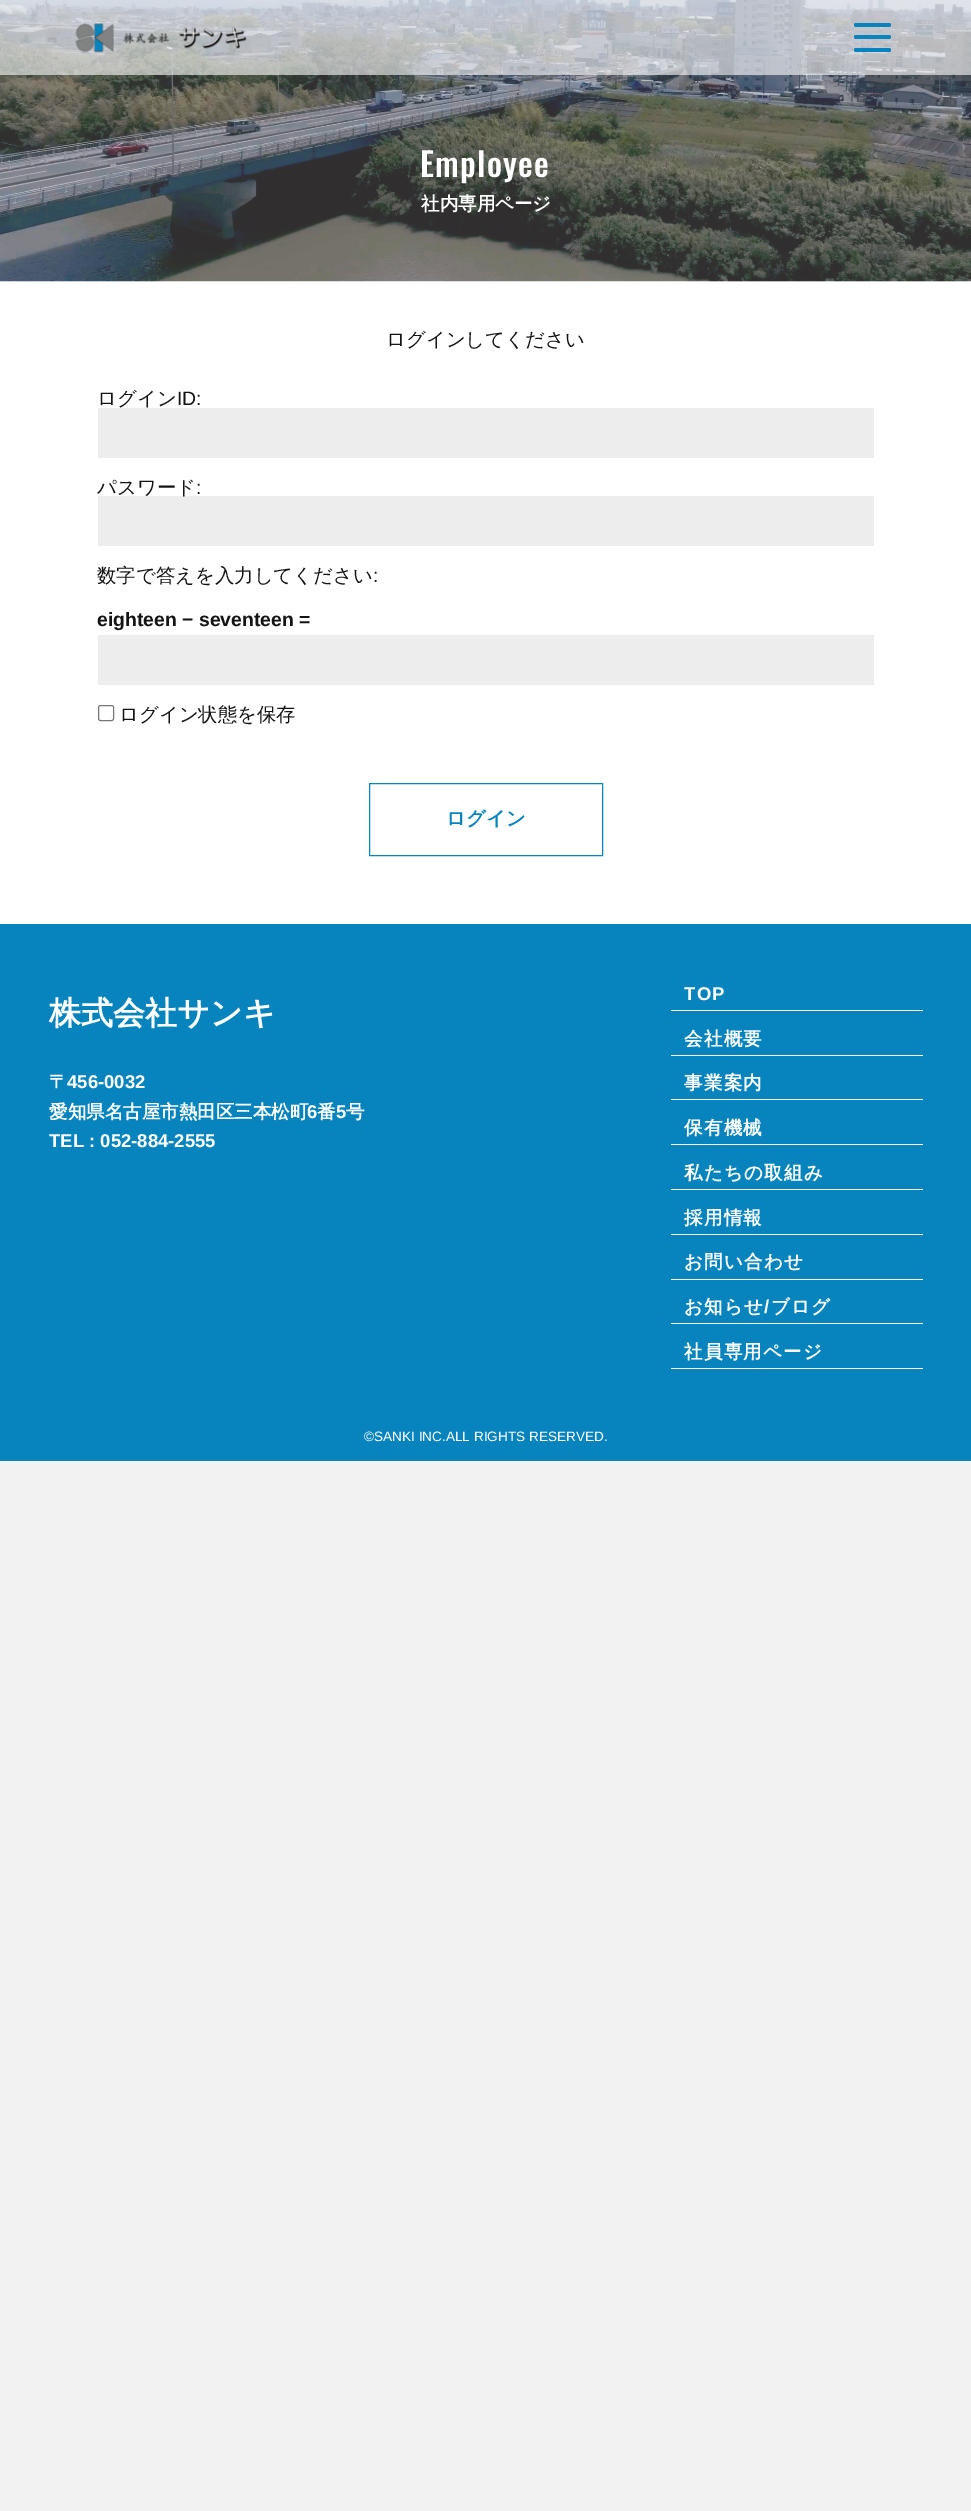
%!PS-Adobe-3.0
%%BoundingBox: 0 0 971 2511
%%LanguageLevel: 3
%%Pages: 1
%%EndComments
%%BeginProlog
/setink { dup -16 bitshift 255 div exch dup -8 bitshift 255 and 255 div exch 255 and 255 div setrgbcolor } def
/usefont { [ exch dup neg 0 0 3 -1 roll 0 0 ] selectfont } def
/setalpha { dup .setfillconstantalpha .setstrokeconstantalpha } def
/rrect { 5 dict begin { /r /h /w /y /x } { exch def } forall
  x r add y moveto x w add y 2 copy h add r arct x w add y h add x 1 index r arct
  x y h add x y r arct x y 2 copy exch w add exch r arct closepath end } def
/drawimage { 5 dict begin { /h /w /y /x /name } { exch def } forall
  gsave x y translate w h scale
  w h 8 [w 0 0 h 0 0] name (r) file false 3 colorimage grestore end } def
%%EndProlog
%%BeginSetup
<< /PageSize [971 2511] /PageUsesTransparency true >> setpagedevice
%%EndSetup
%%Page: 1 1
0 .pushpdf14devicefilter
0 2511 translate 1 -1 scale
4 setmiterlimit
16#F2F2F2 setink
0 0 971 2511 rectfill
16#FFFFFF setink
0 281 971 643 rectfill
(img2.raw) 0 0 971 282 drawimage
0.6 setalpha
0 0 971 75 rectfill
1 setalpha
(img1.raw) 75 23 172 30 drawimage
16#0784BD setink
854 23 37 4 2 rrect fill
854 35 37 4 2 rrect fill
854 48 37 4 2 rrect fill
/Oswald-Medium 33 usefont
16#FFFFFF setink
420 177 moveto 1.25 0 (Employee) ashow
/WenQuanYiZenHei-Bold 18.5 usefont
421 210 moveto (社内専用ページ) show
/WenQuanYiZenHei-Medium 19.4 usefont
16#141414 setink
386 346 moveto (ログインしてください) show
97 405 moveto (ログイン) show
/LiberationSans-Regular 19.4 usefont
177 405 moveto (ID:) show
16#EDEDED setink
98 408 776 50 rectfill
/WenQuanYiZenHei-Medium 19.4 usefont
16#141414 setink
97 494 moveto (パスワード) show
/LiberationSans-Regular 19.4 usefont
196 494 moveto (:) show
0.07 setalpha
16#000000 setink
98 496 776 50 rectfill
/WenQuanYiZenHei-Medium 19.4 usefont
1 setalpha
16#141414 setink
97 582 moveto (数字で答えを入力してください) show
/LiberationSans-Regular 19.4 usefont
373 582 moveto (:) show
/LiberationSans-Bold 19.4 usefont
97 626 moveto (eighteen − seventeen =) show
16#EDEDED setink
98 635 776 50 rectfill
16#767676 setink
98.5 705.5 15 15 2 rrect stroke
/WenQuanYiZenHei-Medium 19.4 usefont
16#141414 setink
119 721 moveto (ログイン状態を保存) show
16#0784BD setink
369.5 783.5 233 72 rectstroke
/WenQuanYiZenHei-Bold 19.4 usefont
446 825 moveto (ログイン) show
0 924 971 537 rectfill
/WenQuanYiZenHei-Bold 32 usefont
16#FFFFFF setink
49 1024 moveto (株式会社サンキ) show
/WenQuanYiZenHei-Bold 18.5 usefont
49 1088 moveto (〒) show
/LiberationSans-Bold 18.5 usefont
67 1088 moveto (456-0032) show
/WenQuanYiZenHei-Bold 18.5 usefont
49 1118 moveto (愛知県名古屋市熱田区三本松町) show
/LiberationSans-Bold 18.5 usefont
307 1118 moveto (6) show
/WenQuanYiZenHei-Bold 18.5 usefont
317 1118 moveto (番) show
/LiberationSans-Bold 18.5 usefont
336 1118 moveto (5) show
/WenQuanYiZenHei-Bold 18.5 usefont
346 1118 moveto (号) show
/LiberationSans-Bold 18.5 usefont
49 1147 moveto (TEL : 052-884-2555) show
671 1010 252 1 rectfill
684 1000 moveto 1.25 0 (TOP) ashow
671 1055 252 1 rectfill
/WenQuanYiZenHei-Bold 18.5 usefont
684 1045 moveto 1.25 0 (会社概要) ashow
671 1099 252 1 rectfill
684 1089 moveto 1.25 0 (事業案内) ashow
671 1144 252 1 rectfill
684 1134 moveto 1.25 0 (保有機械) ashow
671 1189 252 1 rectfill
684 1179 moveto 1.25 0 (私たちの取組み) ashow
671 1234 252 1 rectfill
684 1224 moveto 1.25 0 (採用情報) ashow
671 1279 252 1 rectfill
684 1268 moveto 1.25 0 (お問い合わせ) ashow
671 1323 252 1 rectfill
684 1313 moveto 1.25 0 (お知らせ) ashow
/LiberationSans-Bold 18.5 usefont
764 1313 moveto 1.25 0 (/) ashow
/WenQuanYiZenHei-Bold 18.5 usefont
771 1313 moveto 1.25 0 (ブログ) ashow
671 1368 252 1 rectfill
684 1358 moveto 1.25 0 (社員専⽤ページ) ashow
/LiberationSans-Regular 13.6 usefont
364 1441 moveto (©SANKI INC.ALL RIGHTS RESERVED.) show
.poppdf14devicefilter showpage
%%EOF
